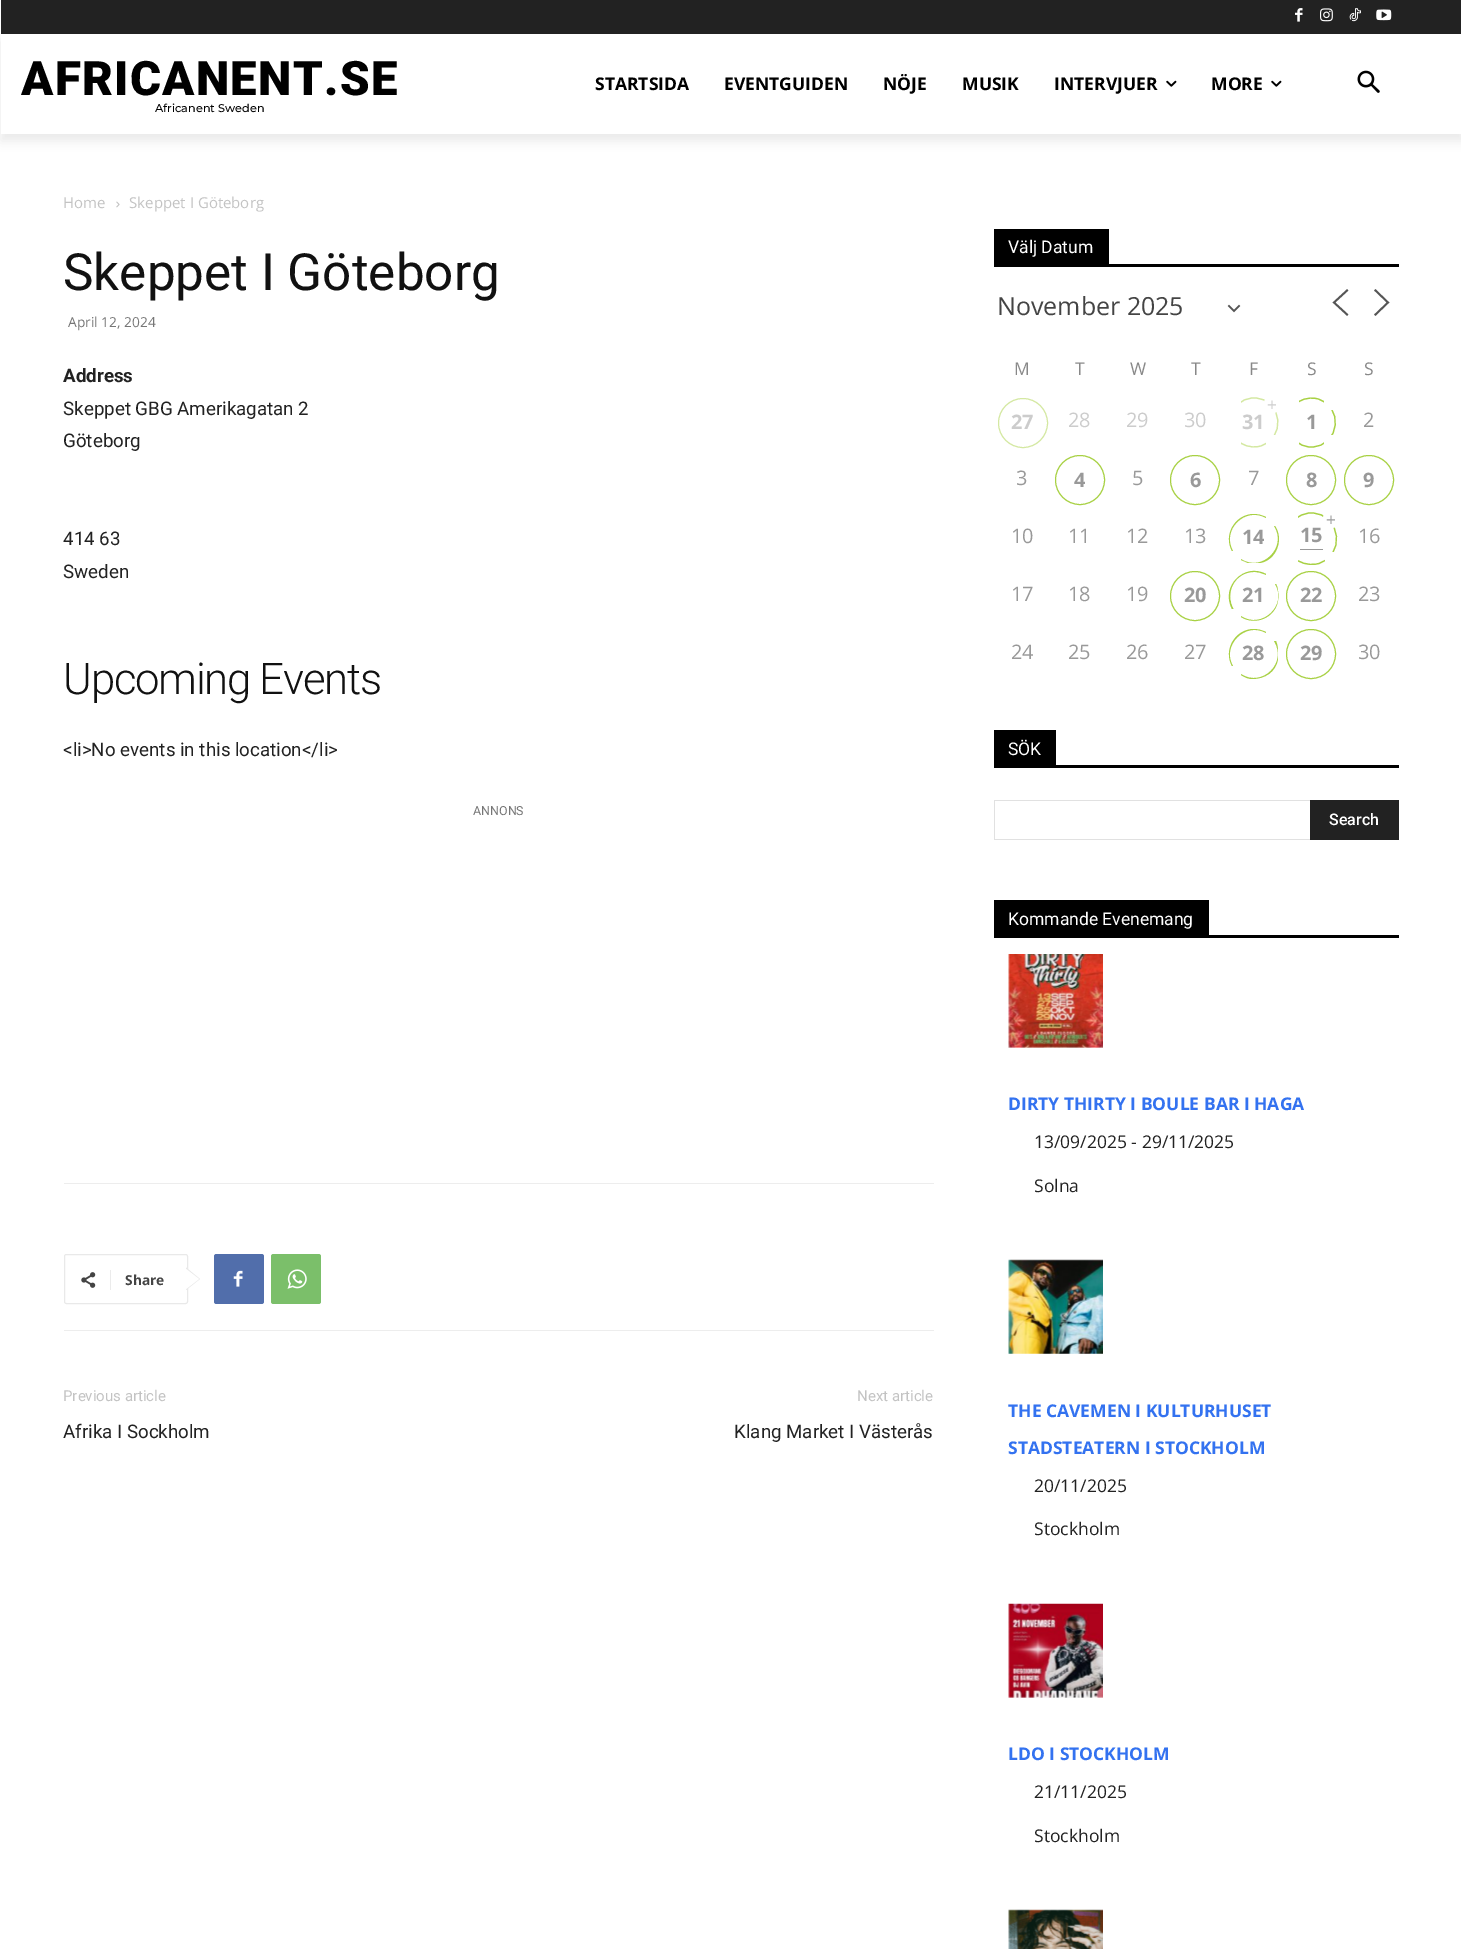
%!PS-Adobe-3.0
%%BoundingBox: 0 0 1461 1949
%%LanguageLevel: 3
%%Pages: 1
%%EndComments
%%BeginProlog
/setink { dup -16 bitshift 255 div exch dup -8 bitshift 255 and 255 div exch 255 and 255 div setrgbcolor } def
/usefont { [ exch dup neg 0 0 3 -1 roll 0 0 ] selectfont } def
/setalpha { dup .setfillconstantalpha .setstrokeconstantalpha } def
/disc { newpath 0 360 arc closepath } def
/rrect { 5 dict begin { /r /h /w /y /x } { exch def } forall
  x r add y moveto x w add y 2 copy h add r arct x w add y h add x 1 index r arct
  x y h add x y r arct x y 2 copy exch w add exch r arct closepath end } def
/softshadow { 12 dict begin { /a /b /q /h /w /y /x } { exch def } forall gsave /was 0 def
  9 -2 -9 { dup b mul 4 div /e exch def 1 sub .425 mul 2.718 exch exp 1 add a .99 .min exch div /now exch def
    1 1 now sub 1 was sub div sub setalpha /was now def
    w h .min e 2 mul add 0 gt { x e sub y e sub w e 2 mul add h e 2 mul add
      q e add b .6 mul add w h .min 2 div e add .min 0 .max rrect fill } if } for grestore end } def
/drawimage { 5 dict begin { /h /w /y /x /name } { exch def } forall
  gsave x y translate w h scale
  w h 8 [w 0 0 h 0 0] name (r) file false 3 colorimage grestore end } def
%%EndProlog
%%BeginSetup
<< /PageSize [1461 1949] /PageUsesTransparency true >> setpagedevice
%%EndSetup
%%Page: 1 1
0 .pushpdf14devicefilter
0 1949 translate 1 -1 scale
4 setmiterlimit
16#FFFFFF setink
0 0 1461 1949 rectfill
16#222222 setink
1 0 1460 34 rectfill
(img1.raw) 1295 8 8 14 drawimage
(img2.raw) 1320 8 13 14 drawimage
(img3.raw) 1349 8 12 14 drawimage
(img4.raw) 1376 9 16 12 drawimage
gsave
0 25 moveto 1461 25 lineto 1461 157 lineto 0 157 lineto closepath 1 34 moveto 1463 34 lineto 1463 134 lineto 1 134 lineto closepath eoclip newpath
16#000000 setink
1 41 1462 100 0 5 0.08 softshadow
grestore
/Roboto-Black 47.5 usefont
16#000000 setink
21 95 moveto 1.25 0 (AFRICANENT.SE) ashow
/Montserrat-Medium 11.25 usefont
155 112 moveto (Africanent Sweden) show
/OpenSans-Bold 17.5 usefont
[
    [(STARTSIDA) 595 90]
    [(EVENTGUIDEN) 724 90]
    [(NÖJE) 883 90]
    [(MUSIK) 962 90]
    [(INTERVJUER) 1054 90]
] { aload pop moveto show } forall
(img5.raw) 1166 80 11 7 drawimage
1211 90 moveto (MORE) show
(img5.raw) 1271 80 11 7 drawimage
(img6.raw) 1357 70 23 23 drawimage
/OpenSans-Regular 15 usefont
16#C3C3C3 setink
63 208 moveto (Home) show
(img7.raw) 116 201 4 7 drawimage
129 208 moveto (Skeppet I Göteborg) show
/Roboto-Regular 51.25 usefont
16#111111 setink
63 290 moveto (Skeppet I Göteborg) show
/OpenSans-Regular 13.75 usefont
16#767676 setink
68 327 moveto (April 12, 2024) show
/Roboto-Bold 18.75 usefont
16#222222 setink
63 382 moveto (Address) show
/Roboto-Regular 18.75 usefont
[
    [(Skeppet GBG Amerikagatan 2) 63 415]
    [(Göteborg) 63 447]
    [(414 63) 63 545]
    [(Sweden) 63 578]
] { aload pop moveto show } forall
/Roboto-Light 43.75 usefont
16#111111 setink
63 694 moveto -1.25 0 (Upcoming Events) ashow
/Roboto-Regular 18.75 usefont
16#222222 setink
63 756 moveto (<li>No events in this location</li>) show
/Roboto-Regular 12.5 usefont
16#767676 setink
473 815 moveto (ANNONS) show
16#EDEDED setink
64 1183 870 1 rectfill
64 1330 870 1 rectfill
16#E9E9E9 setink
64.5 1254.5 123 49 2 rrect stroke
186 1290 moveto 186 1267.5 lineto 200 1279 lineto closepath fill
(img8.raw) 81 1272 15 16 drawimage
16#EBEBEB setink
110 1270 1 20 rectfill
/OpenSans-Bold 13.75 usefont
16#444444 setink
125 1285 moveto (Share) show
16#FFFFFF setink
186 1289 moveto 186 1269 lineto 199 1279 lineto closepath fill
16#516EAB setink
214 1254 50 50 2.5 rrect fill
(img9.raw) 233 1270 10 17 drawimage
16#7BBF6A setink
271 1254 50 50 2.5 rrect fill
(img10.raw) 287 1269 20 20 drawimage
/Roboto-Regular 15 usefont
16#C3C3C3 setink
63 1401 moveto (Previous article) show
/Roboto-Regular 18.75 usefont
16#222222 setink
63 1438 moveto (Afrika I Sockholm) show
/Roboto-Regular 15 usefont
16#C3C3C3 setink
857 1401 moveto (Next article) show
/Roboto-Regular 18.75 usefont
16#222222 setink
734 1438 moveto (Klang Market I Västerås) show
16#000000 setink
994 264 405 3 rectfill
994 229 115 35 rectfill
/Roboto-Regular 17.5 usefont
16#FFFFFF setink
1008 253 moveto (Välj Datum) show
16#555555 setink
1.7 setlinewidth
2 setlinecap
1229 306 moveto 1234 311 lineto 1239 306 lineto stroke
/OpenSans-Regular 25 usefont
16#444444 setink
997 315 moveto (November 2025) show
16#555555 setink
1.8 setlinewidth
1347 314.5 moveto 1334 302.5 lineto 1347 290.5 lineto 1375.5 314.5 moveto 1388 302.5 lineto 1375.5 290.5 lineto stroke
/OpenSans-Regular 17.5 usefont
16#888888 setink
[
    [(M) 1014 375]
    [(T) 1075 375]
    [(W) 1130 375]
    [(T) 1191 375]
    [(F) 1249 375]
    [(S) 1307 375]
    [(S) 1364 375]
] { aload pop moveto show } forall
16#D4E8A2 setink
1 setlinewidth
0 setlinecap
1023 423 24.5 disc stroke
/OpenSans-Bold 20 usefont
16#CCCCCC setink
1011 429 moveto (27) show
/OpenSans-Regular 20 usefont
[
    [(28) 1068 427]
    [(29) 1126 427]
    [(30) 1184 427]
] { aload pop moveto show } forall
gsave
1228.5 410 moveto 1241 410 lineto 1241 397.5 lineto 1266 397.5 lineto 1266 410 lineto 1278.5 410 lineto 1278.5 435 lineto 1266 435 lineto 1266 447.5 lineto 1241 447.5 lineto 1241 435 lineto 1228.5 435 lineto closepath clip newpath
16#D4E8A2 setink
1.2 setlinewidth
1236.5 405.5 moveto 1241 400.5 1247.5 398 1254 398 curveto 1283 398 1287 440.5 1258.5 446.5 curveto 1250.5 448 1242 445.5 1236.5 439.5 curveto stroke
grestore
16#FFFFFF setink
1264 395 17 18 8.5 rrect fill
/OpenSans-Regular 17.5 usefont
16#CCCCCC setink
1267 411 moveto (+) show
/OpenSans-Bold 20 usefont
1242 429 moveto (31) show
gsave
1286.5 410 moveto 1299 410 lineto 1299 397.5 lineto 1324 397.5 lineto 1324 410 lineto 1336.5 410 lineto 1336.5 435 lineto 1324 435 lineto 1324 447.5 lineto 1299 447.5 lineto 1299 435 lineto 1286.5 435 lineto closepath clip newpath
16#A8D144 setink
1.2 setlinewidth
1294 405.5 moveto 1299.5 399.5 1308 397 1316 398.5 curveto 1344.5 404.5 1340.5 447 1311 447 curveto 1305 447 1298.5 444.5 1294 439.5 curveto stroke
grestore
16#999999 setink
1306 429 moveto (1) show
/OpenSans-Regular 20 usefont
1363 427 moveto (2) show
1016 485 moveto (3) show
16#A8D144 setink
1080 480 24.5 disc stroke
/OpenSans-Bold 20 usefont
16#999999 setink
1074 487 moveto (4) show
/OpenSans-Regular 20 usefont
1132 485 moveto (5) show
16#A8D144 setink
1195 480 24.5 disc stroke
/OpenSans-Bold 20 usefont
16#999999 setink
1190 487 moveto (6) show
/OpenSans-Regular 20 usefont
1248 485 moveto (7) show
16#A8D144 setink
1311 480 24.5 disc stroke
/OpenSans-Bold 20 usefont
16#999999 setink
1306 487 moveto (8) show
16#A8D144 setink
1369 480 24.5 disc stroke
16#999999 setink
1363 487 moveto (9) show
/OpenSans-Regular 20 usefont
[
    [(10) 1011 543]
    [(11) 1068 543]
    [(12) 1126 543]
    [(13) 1184 543]
] { aload pop moveto show } forall
16#A8D144 setink
1248 563 moveto 1241 560 lineto 1241 559 lineto 1262 573 1288 547 1274 526 curveto 1275 526 lineto 1284 539 1277 560 1260 563 curveto closepath 1254 514 moveto 1235 514 1223 535 1232 551 curveto 1233 551 lineto 1221 530 1245 506 1266 518 curveto 1266 517 lineto 1262 515 1258 514 1254 514 curveto closepath eofill
/OpenSans-Bold 20 usefont
16#999999 setink
1242 544 moveto (14) show
gsave
1285 525 moveto 1298 525 lineto 1298 512 lineto 1324.5 512 lineto 1324.5 525 lineto 1337.5 525 lineto 1337.5 551.5 lineto 1324.5 551.5 lineto 1324.5 564.5 lineto 1298 564.5 lineto 1298 551.5 lineto 1285 551.5 lineto closepath clip newpath
16#A8D144 setink
1.2 setlinewidth
1293 520.5 moveto 1298 516 1304.5 513 1311 513 curveto 1342 513 1346 558 1316.5 564 curveto 1308 565.5 1299 563 1293 557 curveto stroke
grestore
16#FFFFFF setink
1323 510 17 18 8.5 rrect fill
/OpenSans-Regular 17.5 usefont
16#999999 setink
1326 526 moveto (+) show
/OpenSans-Bold 20 usefont
1300 542 moveto (15) show
1300 549 23 1 rectfill
/OpenSans-Regular 20 usefont
[
    [(16) 1358 543]
    [(17) 1011 601]
    [(18) 1068 601]
    [(19) 1126 601]
] { aload pop moveto show } forall
16#A8D144 setink
1195 596 24.5 disc stroke
/OpenSans-Bold 20 usefont
16#999999 setink
1184 602 moveto (20) show
16#A8D144 setink
1254 572 moveto 1235 572 1224 593 1234 609 curveto 1232 609 lineto 1220 587 1244 562 1266 574 curveto 1266 575 lineto 1262 573 1258 572 1254 572 curveto closepath 1278 601 moveto 1275 618 1255 626 1241 617 curveto 1241 616 lineto 1262 630 1288 605 1275 584 curveto 1276 584 lineto 1279 589 1278 595 1278 601 curveto closepath eofill
16#FEFEFE setink
1272 584 moveto 1286 604 1261 629 1241 615 curveto 1241 614 lineto 1261 628 1285 603 1271 584 curveto closepath 1254 574 moveto 1236 574 1225 594 1234 609 curveto 1236 609 lineto 1223 589 1247 565 1266 579 curveto 1266 578 lineto 1262 575 1258 574 1254 574 curveto closepath eofill
16#999999 setink
1242 602 moveto (21) show
16#A8D144 setink
1311 596 24.5 disc stroke
16#999999 setink
1300 602 moveto (22) show
/OpenSans-Regular 20 usefont
[
    [(23) 1358 601]
    [(24) 1011 659]
    [(25) 1068 659]
    [(26) 1126 659]
    [(27) 1184 659]
] { aload pop moveto show } forall
16#A8D144 setink
1252 679 moveto 1248 679 1244 677 1241 675 curveto 1241 674 lineto 1262 688 1288 663 1274 641 curveto 1276 641 lineto 1278 646 1278 649 1278 654 curveto 1278 659 lineto 1276 672 1265 679 1252 679 curveto closepath 1254 629 moveto 1235 629 1223 650 1232 666 curveto 1233 666 lineto 1221 646 1245 621 1266 633 curveto 1266 632 lineto 1262 630 1258 629 1254 629 curveto closepath eofill
/OpenSans-Bold 20 usefont
16#999999 setink
1242 660 moveto (28) show
16#A8D144 setink
1311 654 24.5 disc stroke
16#999999 setink
1300 660 moveto (29) show
/OpenSans-Regular 20 usefont
1358 659 moveto (30) show
16#000000 setink
994 765 405 3 rectfill
994 730 62 35 rectfill
/Roboto-Regular 17.5 usefont
16#FFFFFF setink
1008 755 moveto (SÖK) show
[
    [994 800 316 1 16#E1E1E1]
    [994 839 316 1 16#E1E1E1]
    [994 800 1 40 16#E1E1E1]
    [1310 800 89 40 16#222222]
] { aload pop setink rectfill } forall
/Roboto-Medium 16 usefont
16#FFFFFF setink
1329 825 moveto (Search) show
16#000000 setink
994 935 405 3 rectfill
994 900 215 35 rectfill
/Roboto-Regular 17.5 usefont
16#FFFFFF setink
1008 925 moveto (Kommande Evenemang) show
(img11.raw) 1008 954 95 94 drawimage
/OpenSans-Bold 17.5 usefont
16#3372F0 setink
1008 1110 moveto (DIRTY THIRTY I BOULE BAR I HAGA) show
/OpenSans-Regular 17.5 usefont
16#222222 setink
1034 1148 moveto (13/09/2025 - 29/11/2025) show
1034 1192 moveto (Solna) show
(img12.raw) 1008 1259 95 95 drawimage
/OpenSans-Bold 17.5 usefont
16#3372F0 setink
1008 1417 moveto (THE CAVEMEN I KULTURHUSET) show
1008 1454 moveto (STADSTEATERN I STOCKHOLM) show
/OpenSans-Regular 17.5 usefont
16#222222 setink
1034 1492 moveto (20/11/2025) show
1034 1535 moveto (Stockholm) show
(img13.raw) 1008 1603 95 95 drawimage
/OpenSans-Bold 17.5 usefont
16#3372F0 setink
1008 1760 moveto (LDO I STOCKHOLM) show
/OpenSans-Regular 17.5 usefont
16#222222 setink
1034 1798 moveto (21/11/2025) show
1034 1842 moveto (Stockholm) show
(img14.raw) 1008 1909 95 40 drawimage
.poppdf14devicefilter showpage
%%EOF
